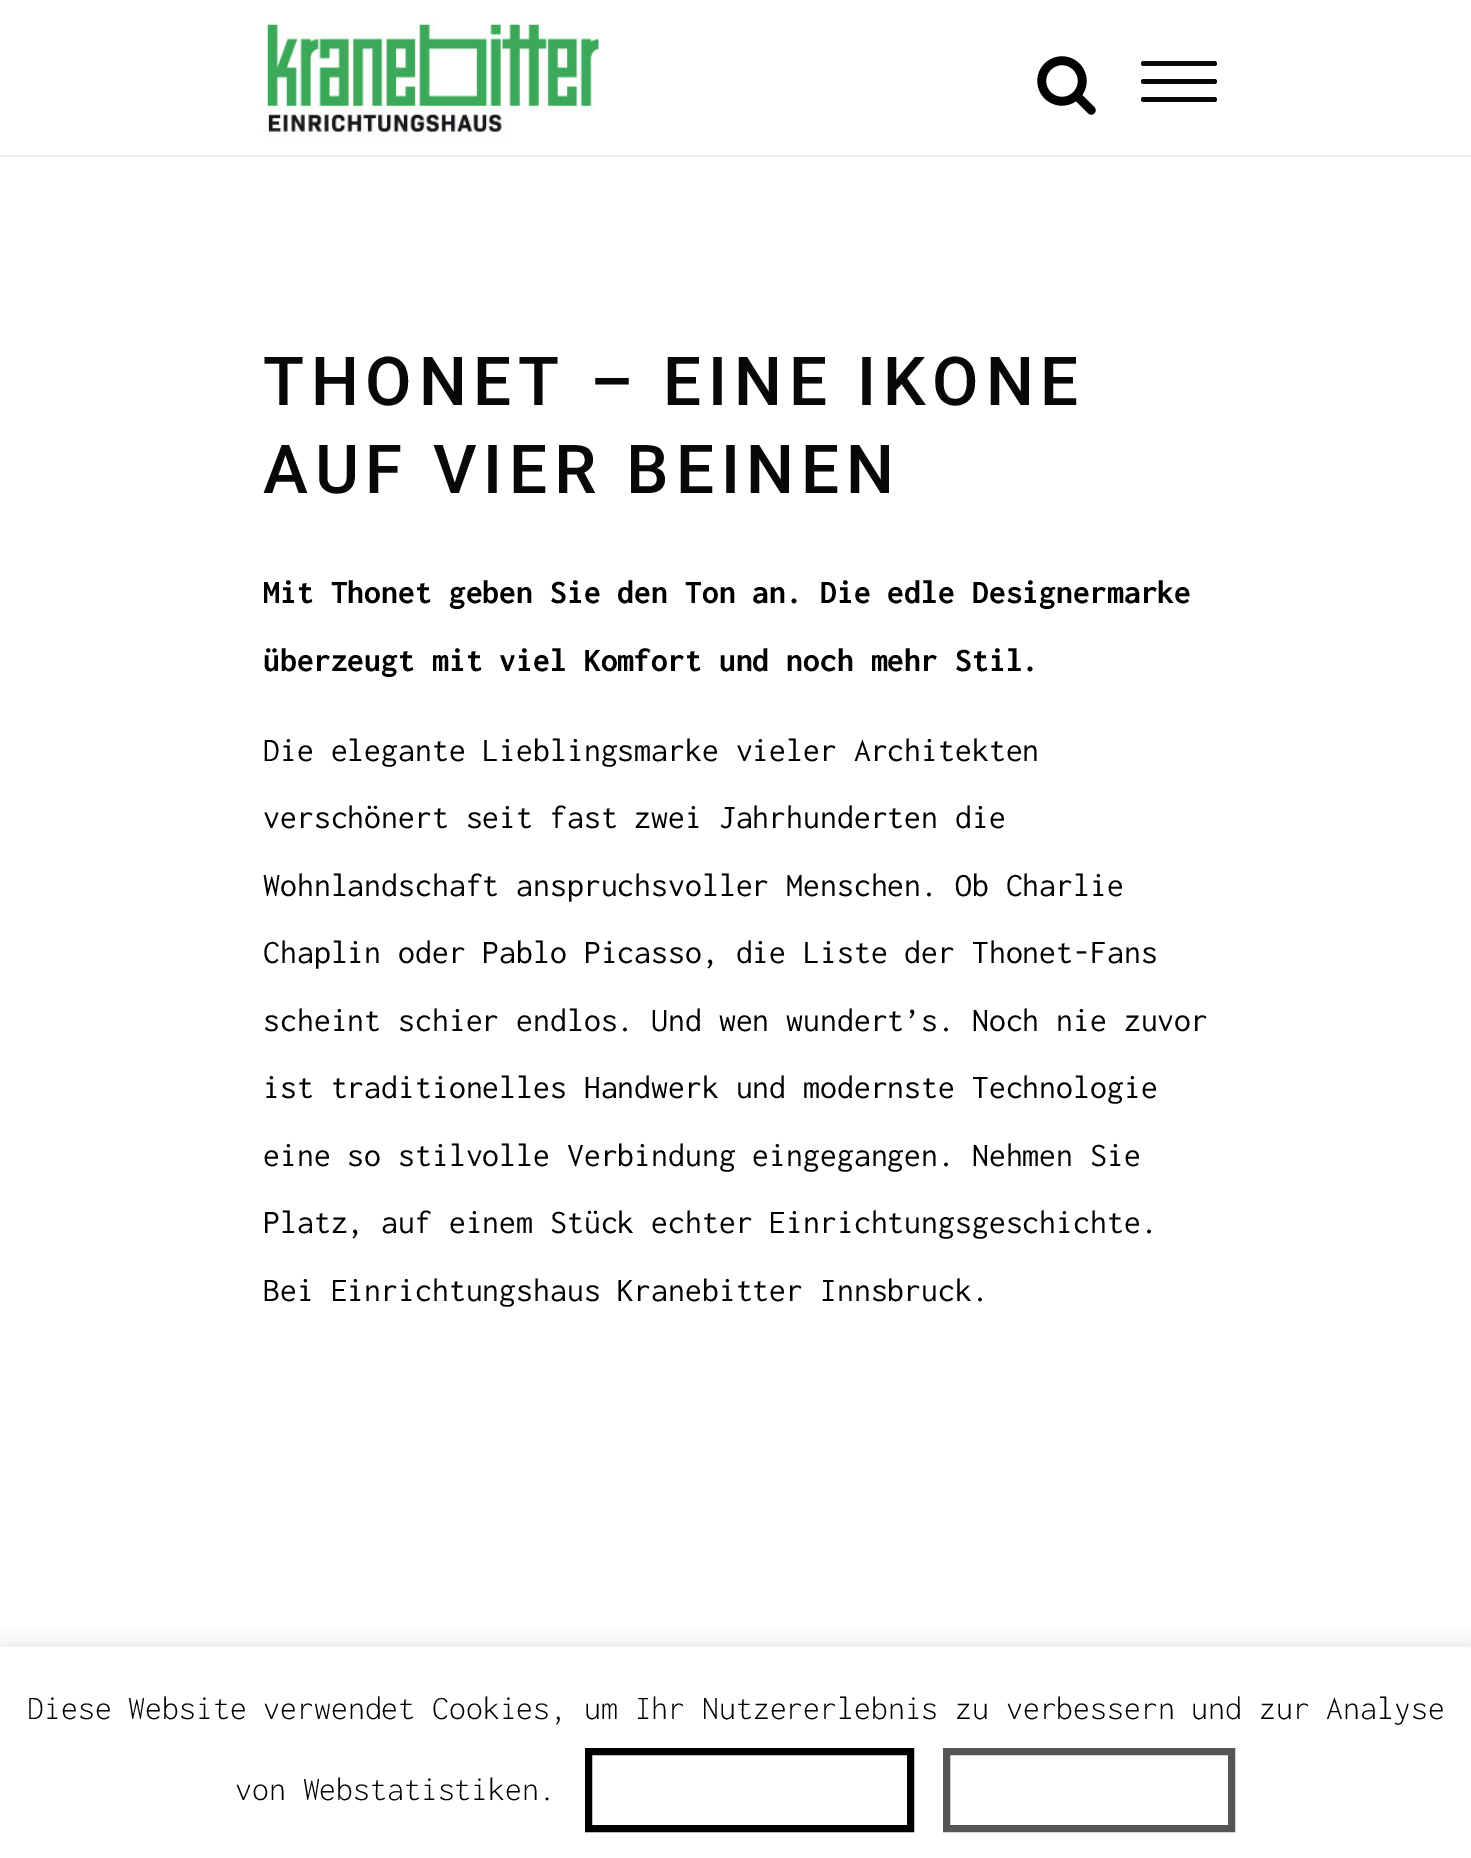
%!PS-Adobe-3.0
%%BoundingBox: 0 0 1471 1858
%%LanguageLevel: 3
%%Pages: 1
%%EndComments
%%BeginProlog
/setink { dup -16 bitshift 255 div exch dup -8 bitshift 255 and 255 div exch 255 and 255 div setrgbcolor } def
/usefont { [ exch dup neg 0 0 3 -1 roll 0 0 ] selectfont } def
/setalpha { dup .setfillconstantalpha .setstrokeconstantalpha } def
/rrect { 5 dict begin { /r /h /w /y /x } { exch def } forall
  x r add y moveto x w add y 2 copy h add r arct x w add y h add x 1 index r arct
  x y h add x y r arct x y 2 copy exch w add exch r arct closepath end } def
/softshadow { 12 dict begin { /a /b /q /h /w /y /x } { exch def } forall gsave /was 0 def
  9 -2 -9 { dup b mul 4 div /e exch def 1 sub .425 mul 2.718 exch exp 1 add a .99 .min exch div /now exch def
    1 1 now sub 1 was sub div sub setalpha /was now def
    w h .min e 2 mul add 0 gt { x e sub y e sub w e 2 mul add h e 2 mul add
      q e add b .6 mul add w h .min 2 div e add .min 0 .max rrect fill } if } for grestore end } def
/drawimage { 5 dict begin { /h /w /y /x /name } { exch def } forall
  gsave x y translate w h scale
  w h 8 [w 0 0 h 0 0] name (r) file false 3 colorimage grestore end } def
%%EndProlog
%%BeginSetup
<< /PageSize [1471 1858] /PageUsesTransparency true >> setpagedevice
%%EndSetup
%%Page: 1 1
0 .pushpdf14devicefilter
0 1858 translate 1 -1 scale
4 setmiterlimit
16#FFFFFF setink
0 0 1471 1858 rectfill
16#EDEDED setink
0 155 1471 2 rectfill
(img1.raw) 263 22 338 117 drawimage
(img2.raw) 1037 56 59 59 drawimage
16#080808 setink
1141 61 76 5 2.5 rrect fill
1141 79 76 5 2.5 rrect fill
1141 97 76 5 2.5 rrect fill
/Roboto-Medium 67.5 usefont
263 405 moveto 6.75 0 (THONET – EINE IKONE) ashow
263 493 moveto 6.75 0 (AUF VIER BEINEN) ashow
/Inconsolata-Bold 33.75 usefont
16#000000 setink
263 603 moveto (Mit Thonet geben Sie den Ton an. Die edle Designermarke) show
263 671 moveto (überzeugt mit viel Komfort und noch mehr Stil.) show
/Inconsolata-Regular 33.75 usefont
[
    [(Die elegante Lieblingsmarke vieler Architekten) 263 761]
    [(verschönert seit fast zwei Jahrhunderten die) 263 828]
    [(Wohnlandschaft anspruchsvoller Menschen. Ob Charlie) 263 896]
    [(Chaplin oder Pablo Picasso, die Liste der Thonet-Fans) 263 963]
    [(scheint schier endlos. Und wen wundert’s. Noch nie zuvor) 263 1031]
    [(ist traditionelles Handwerk und modernste Technologie) 263 1098]
    [(eine so stilvolle Verbindung eingegangen. Nehmen Sie) 263 1166]
    [(Platz, auf einem Stück echter Einrichtungsgeschichte.) 263 1233]
    [(Bei Einrichtungshaus Kranebitter Innsbruck.) 263 1301]
] { aload pop moveto show } forall
gsave
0 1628 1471 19 rectclip
16#ACABAB setink
0 1645 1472 211 0 11 0.3 softshadow
grestore
/Inconsolata-Light 33.75 usefont
27 1719 moveto (Diese Website verwendet Cookies, um Ihr Nutzererlebnis zu verbessern und zur Analyse) show
235 1800 moveto (von Webstatistiken.) show
7 setlinewidth
588.5 1751.5 322 77 rectstroke
16#555555 setink
946.5 1751.5 285 77 rectstroke
.poppdf14devicefilter showpage
%%EOF
